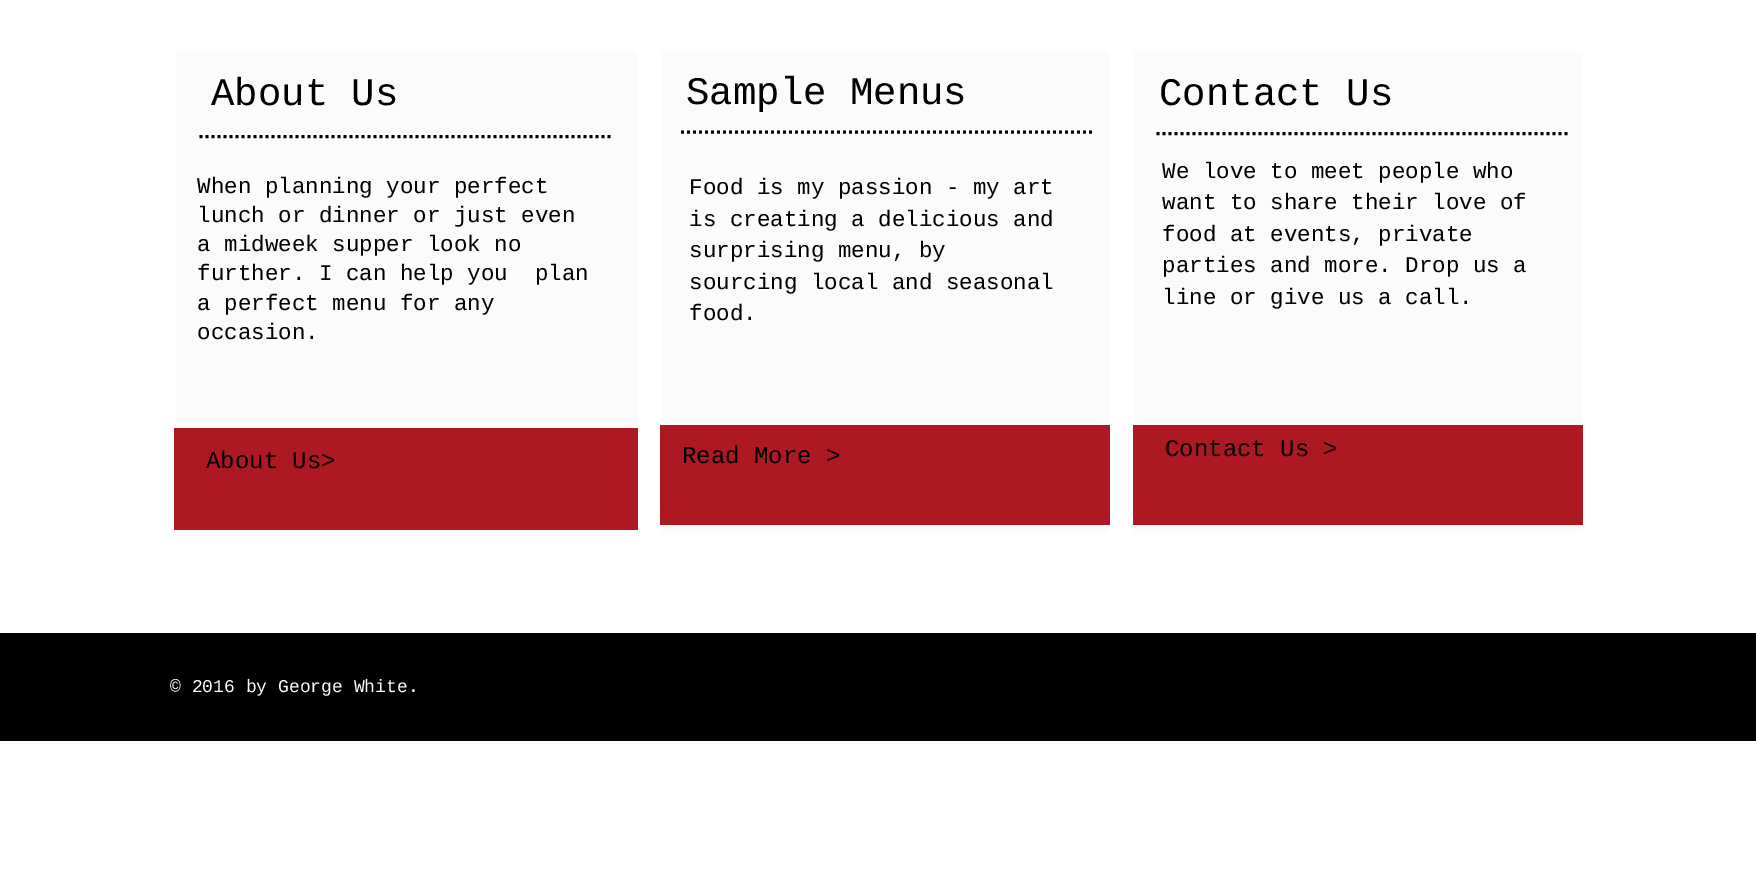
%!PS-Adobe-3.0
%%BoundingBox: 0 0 1756 883
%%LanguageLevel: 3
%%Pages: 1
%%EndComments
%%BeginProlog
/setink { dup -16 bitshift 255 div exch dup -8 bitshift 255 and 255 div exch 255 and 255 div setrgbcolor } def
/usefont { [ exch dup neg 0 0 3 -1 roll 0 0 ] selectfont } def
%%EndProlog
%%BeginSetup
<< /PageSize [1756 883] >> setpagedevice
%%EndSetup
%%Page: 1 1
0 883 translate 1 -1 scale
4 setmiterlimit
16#FFFFFF setink
0 0 1756 883 rectfill
16#FBFBFB setink
176 51 462 482 rectfill
/LiberationMono-Regular 39 usefont
16#000000 setink
211 105 moveto (About Us) show
3 setlinewidth
[3 3] 0 setdash
199.5 136.5 moveto 612 136.5 lineto stroke
/LiberationMono-Regular 22.5 usefont
[
    [(When planning your perfect) 197 193]
    [(lunch or dinner or just even) 197 222]
    [(a midweek supper look no) 197 251]
    [(further. I can help you  plan) 197 280]
    [(a perfect menu for any) 197 310]
    [(occasion.) 197 339]
] { aload pop moveto show } forall
16#AD1822 setink
174 428 464 102 rectfill
/LiberationMono-Regular 24 usefont
16#000000 setink
206 468 moveto (About Us>) show
16#FBFBFB setink
662 51 448 482 rectfill
/LiberationMono-Regular 39 usefont
16#000000 setink
686 104 moveto (Sample Menus) show
681 132 moveto 1093.5 132 lineto stroke
/LiberationMono-Regular 22.5 usefont
[
    [(Food is my passion - my art) 689 194]
    [(is creating a delicious and) 689 226]
    [(surprising menu, by) 689 257]
    [(sourcing local and seasonal) 689 289]
    [(food.) 689 320]
] { aload pop moveto show } forall
16#FBFBFB setink
1134 51 449 482 rectfill
/LiberationMono-Regular 39 usefont
16#000000 setink
1159 105 moveto (Contact Us) show
1156.5 133.5 moveto 1570.5 133.5 lineto stroke
/LiberationMono-Regular 22.5 usefont
[
    [(We love to meet people who) 1162 178]
    [(want to share their love of) 1162 209]
    [(food at events, private) 1162 241]
    [(parties and more. Drop us a) 1162 272]
    [(line or give us a call.) 1162 304]
] { aload pop moveto show } forall
16#AD1822 setink
660 425 450 100 rectfill
/LiberationMono-Regular 24 usefont
16#000000 setink
682 463 moveto (Read More >) show
16#AD1822 setink
1133 425 450 100 rectfill
16#000000 setink
1165 456 moveto (Contact Us >) show
0 633 1756 108 rectfill
/LiberationMono-Regular 18 usefont
16#FFFFFF setink
170 692 moveto (© 2016 by George White.) show
showpage
%%EOF
